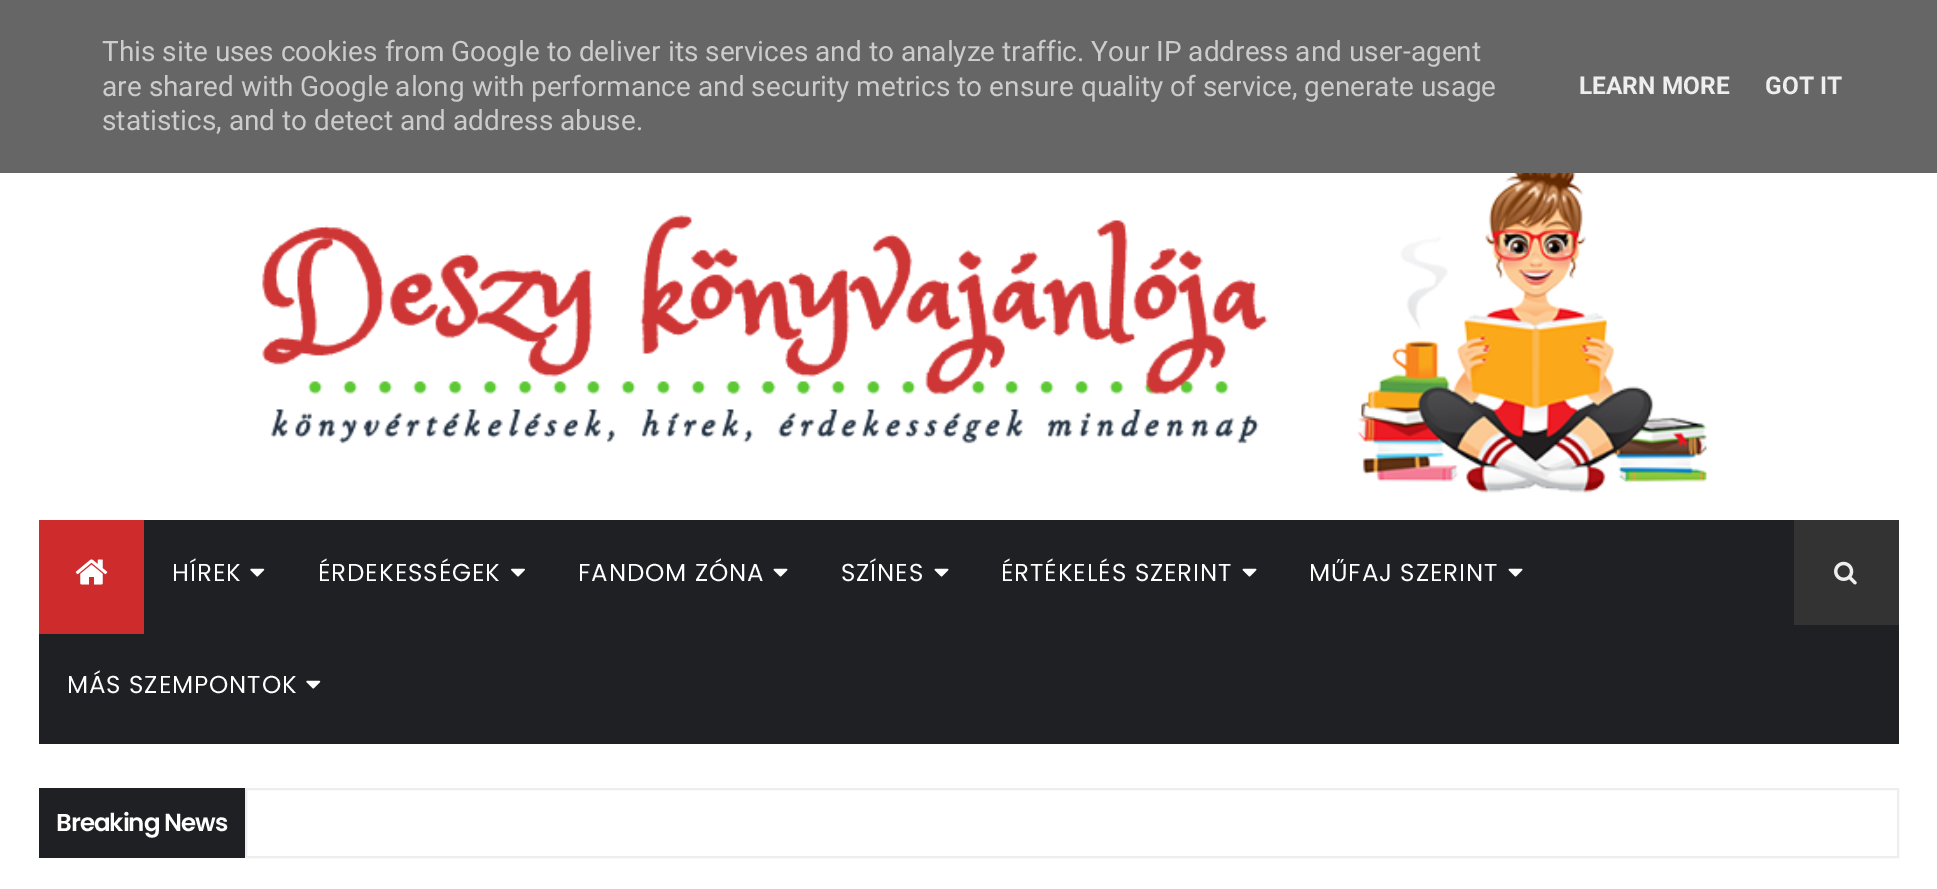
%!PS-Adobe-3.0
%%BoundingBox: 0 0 1937 889
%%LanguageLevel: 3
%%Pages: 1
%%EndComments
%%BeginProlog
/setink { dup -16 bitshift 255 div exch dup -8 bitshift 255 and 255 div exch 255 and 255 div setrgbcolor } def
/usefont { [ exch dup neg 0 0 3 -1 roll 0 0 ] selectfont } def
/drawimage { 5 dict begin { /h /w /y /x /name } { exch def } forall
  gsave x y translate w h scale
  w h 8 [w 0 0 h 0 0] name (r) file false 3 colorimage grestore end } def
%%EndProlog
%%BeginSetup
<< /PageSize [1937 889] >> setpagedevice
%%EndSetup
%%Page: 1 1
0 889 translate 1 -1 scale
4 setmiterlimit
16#FFFFFF setink
0 0 1937 889 rectfill
16#666666 setink
0 0 1937 173 rectfill
/Roboto-Regular 28 usefont
16#CCCCCC setink
[
    [(This site uses cookies from Google to deliver its services and to analyze traffic. Your IP address and user-agent) 102 61]
    [(are shared with Google along with performance and security metrics to ensure quality of service, generate usage) 102 96]
    [(statistics, and to detect and address abuse.) 102 130]
] { aload pop moveto show } forall
/Roboto-Bold 24.5 usefont
16#EEEEEE setink
1579 94 moveto (LEARN MORE) show
1765 94 moveto (GOT IT) show
(img1.raw) 262 173 1447 321 drawimage
16#1F2024 setink
39 520 1860 224 rectfill
16#CE2C2C setink
39 520 105 114 rectfill
(img2.raw) 75 559 33 26 drawimage
16#333333 setink
1794 520 105 105 rectfill
(img3.raw) 1834 561 23 24 drawimage
/Poppins-Regular 24.5 usefont
16#FFFFFF setink
172 581 moveto 0.9 0 (HÍREK) ashow
(img4.raw) 250 568 15 9 drawimage
318 581 moveto 0.9 0 (ÉRDEKESSÉGEK) ashow
(img5.raw) 511 568 14 9 drawimage
578 581 moveto 0.9 0 (FANDOM ZÓNA) ashow
(img6.raw) 773 568 15 9 drawimage
841 581 moveto 0.9 0 (SZÍNES) ashow
(img6.raw) 934 568 15 9 drawimage
1001 581 moveto 0.9 0 (ÉRTÉKELÉS SZERINT) ashow
(img6.raw) 1242 568 15 9 drawimage
1309 581 moveto 0.9 0 (MŰFAJ SZERINT) ashow
(img6.raw) 1508 568 15 9 drawimage
67 693 moveto 0.9 0 (MÁS SZEMPONTOK) ashow
(img4.raw) 306 680 15 9 drawimage
16#1F2024 setink
39 788 206 70 rectfill
/Poppins-SemiBold 24.5 usefont
16#FFFFFF setink
56 831 moveto -1 0 (Breaking News) ashow
16#EEEEEE setink
2 setlinewidth
246 789 1652 68 rectstroke
showpage
%%EOF
